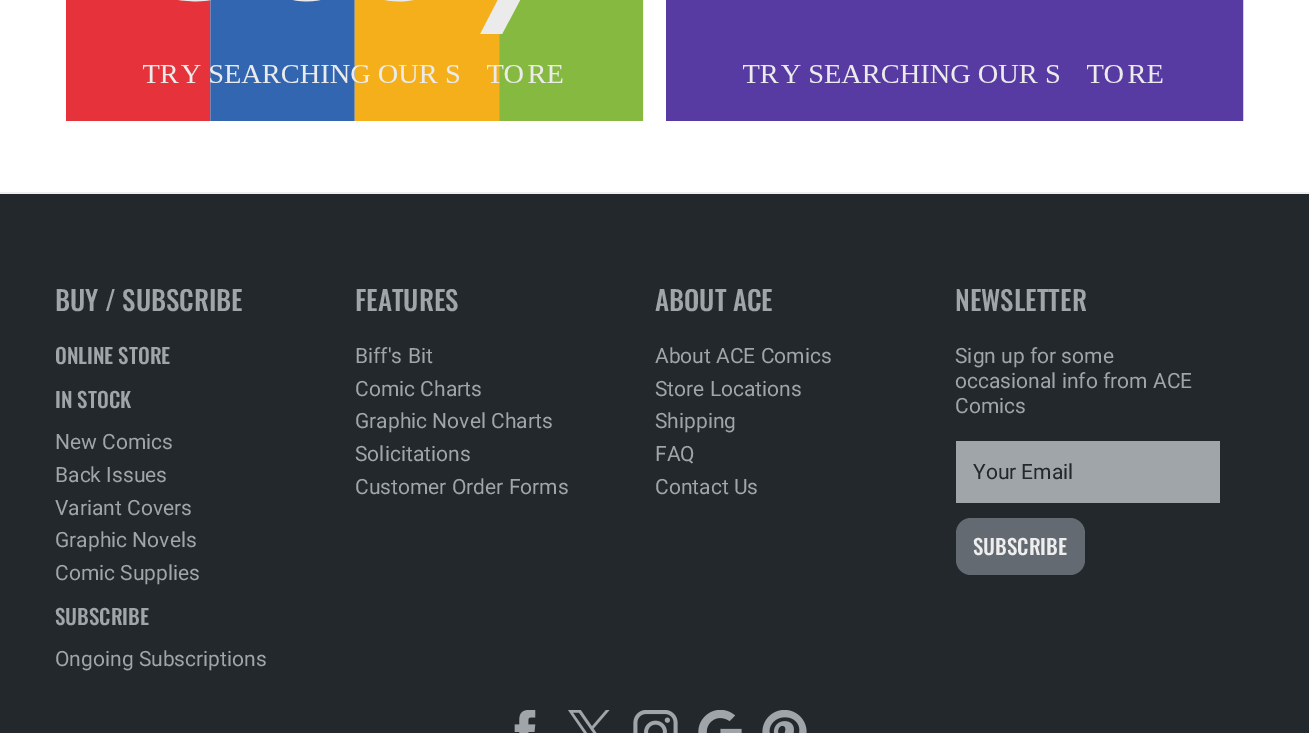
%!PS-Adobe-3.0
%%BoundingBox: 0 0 1309 733
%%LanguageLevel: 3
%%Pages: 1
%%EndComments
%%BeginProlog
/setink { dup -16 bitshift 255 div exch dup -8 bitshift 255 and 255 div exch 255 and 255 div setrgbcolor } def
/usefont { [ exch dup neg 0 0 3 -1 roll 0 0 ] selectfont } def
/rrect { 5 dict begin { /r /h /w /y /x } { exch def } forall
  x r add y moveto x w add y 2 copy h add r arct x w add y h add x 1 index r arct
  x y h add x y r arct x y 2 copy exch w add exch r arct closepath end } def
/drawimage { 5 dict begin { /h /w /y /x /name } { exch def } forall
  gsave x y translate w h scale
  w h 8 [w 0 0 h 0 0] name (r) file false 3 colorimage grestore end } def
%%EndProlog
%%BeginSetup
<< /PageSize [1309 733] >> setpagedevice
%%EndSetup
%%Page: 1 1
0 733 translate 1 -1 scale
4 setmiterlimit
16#FFFFFF setink
0 0 1309 733 rectfill
(img1.raw) 66 0 578 121 drawimage
(img2.raw) 666 0 578 121 drawimage
16#23282D setink
0 194 1309 539 rectfill
16#EEEEEE setink
0 192 1309 2 rectfill
/Oswald-Medium 27 usefont
16#A0A5AA setink
55 311 moveto (BUY / SUBSCRIBE) show
/Oswald-Medium 21 usefont
55 364 moveto (ONLINE STORE) show
55 408 moveto (IN STOCK) show
/Roboto-Regular 21 usefont
[
    [(New Comics) 55 449]
    [(Back Issues) 55 482]
    [(Variant Covers) 55 515]
    [(Graphic Novels) 55 547]
    [(Comic Supplies) 55 580]
] { aload pop moveto show } forall
/Oswald-Medium 21 usefont
55 625 moveto (SUBSCRIBE) show
/Roboto-Regular 21 usefont
55 666 moveto (Ongoing Subscriptions) show
/Oswald-Medium 27 usefont
355 311 moveto (FEATURES) show
/Roboto-Regular 21 usefont
[
    [(Biff's Bit) 355 363]
    [(Comic Charts) 355 396]
    [(Graphic Novel Charts) 355 428]
    [(Solicitations) 355 461]
    [(Customer Order Forms) 355 494]
] { aload pop moveto show } forall
/Oswald-Medium 27 usefont
655 311 moveto (ABOUT ACE) show
/Roboto-Regular 21 usefont
[
    [(About ACE Comics) 655 363]
    [(Store Locations) 655 396]
    [(Shipping) 655 428]
    [(FAQ) 655 461]
    [(Contact Us) 655 494]
] { aload pop moveto show } forall
/Oswald-Medium 27 usefont
955 311 moveto (NEWSLETTER) show
/Roboto-Regular 21 usefont
[
    [(Sign up for some) 955 363]
    [(occasional info from ACE) 955 388]
    [(Comics) 955 413]
] { aload pop moveto show } forall
956 441 264 62 rectfill
16#23282D setink
973 479 moveto (Your Email) show
16#636A72 setink
956 518 129 57 15 rrect fill
/Oswald-Medium 21 usefont
16#EEEEEE setink
973 555 moveto (SUBSCRIBE) show
(img3.raw) 514 710 22 23 drawimage
(img4.raw) 568 710 42 23 drawimage
(img5.raw) 633 710 45 23 drawimage
(img6.raw) 698 710 44 23 drawimage
(img7.raw) 762 710 45 23 drawimage
showpage
%%EOF
